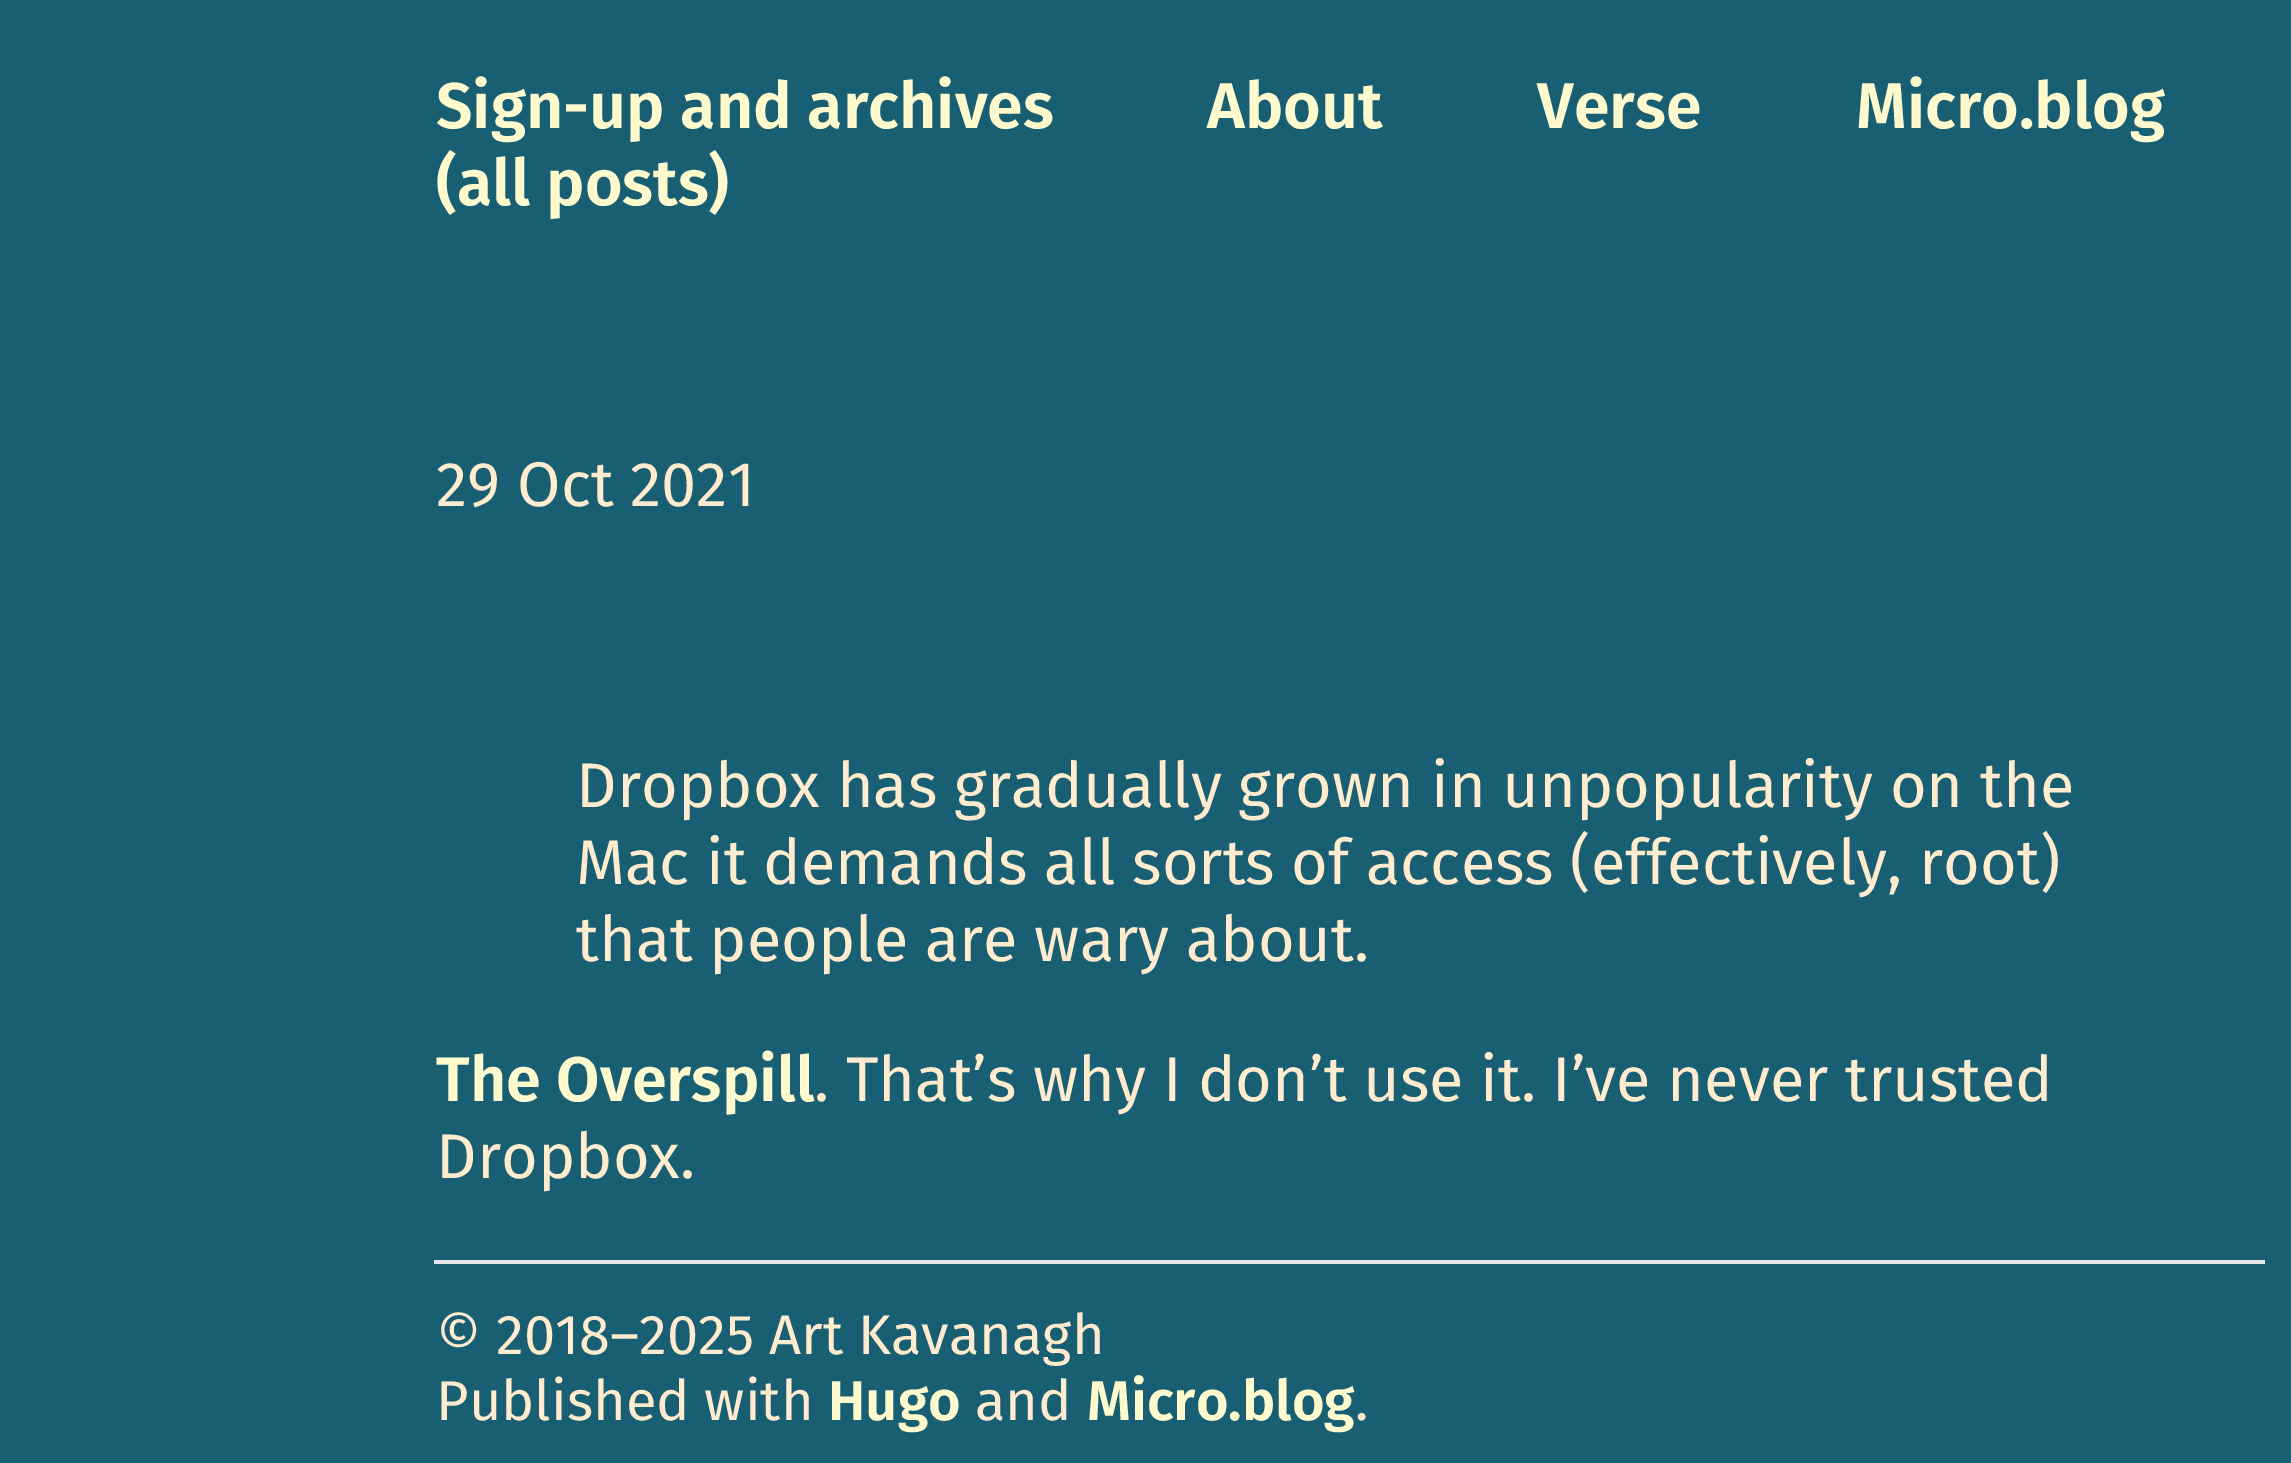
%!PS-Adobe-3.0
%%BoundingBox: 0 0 2291 1463
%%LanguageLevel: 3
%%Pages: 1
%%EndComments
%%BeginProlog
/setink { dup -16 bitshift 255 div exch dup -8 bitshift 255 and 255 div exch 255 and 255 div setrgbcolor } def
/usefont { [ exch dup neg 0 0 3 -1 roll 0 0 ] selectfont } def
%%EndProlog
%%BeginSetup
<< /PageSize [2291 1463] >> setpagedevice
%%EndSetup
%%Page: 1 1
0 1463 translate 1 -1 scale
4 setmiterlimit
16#195F74 setink
0 0 2291 1463 rectfill
/FiraSans-SemiBold 64.5 usefont
16#FFFACD setink
[
    [(Sign-up and archives) 436 128]
    [(About) 1207 128]
    [(Verse) 1537 128]
    [(Micro.blog) 1856 128]
    [(\(all posts\)) 436 205]
] { aload pop moveto show } forall
/FiraSans-Regular 63 usefont
16#FFEBCD setink
[
    [(29 Oct 2021) 436 506]
    [(Dropbox has gradually grown in unpopularity on the) 576 807]
    [(Mac it demands all sorts of access \(effectively, root\)) 576 884]
    [(that people are wary about.) 576 961]
] { aload pop moveto show } forall
/FiraSans-SemiBold 63 usefont
16#FFFACD setink
436 1101 moveto (The Overspill) show
/FiraSans-Regular 63 usefont
16#FFEBCD setink
814 1101 moveto (. That’s why I don’t use it. I’ve never trusted) show
436 1178 moveto (Dropbox.) show
16#E8E8E8 setink
434 1260 1831 4 rectfill
/FiraSans-Regular 56 usefont
16#FFEBCD setink
436 1354 moveto (© 2018–2025 Art Kavanagh) show
436 1420 moveto (Published with) show
/FiraSans-SemiBold 56 usefont
16#FFFACD setink
828 1420 moveto (Hugo) show
/FiraSans-Regular 56 usefont
16#FFEBCD setink
975 1420 moveto (and) show
/FiraSans-SemiBold 56 usefont
16#FFFACD setink
1087 1420 moveto (Micro.blog) show
/FiraSans-Regular 56 usefont
16#FFEBCD setink
1355 1420 moveto (.) show
showpage
%%EOF
